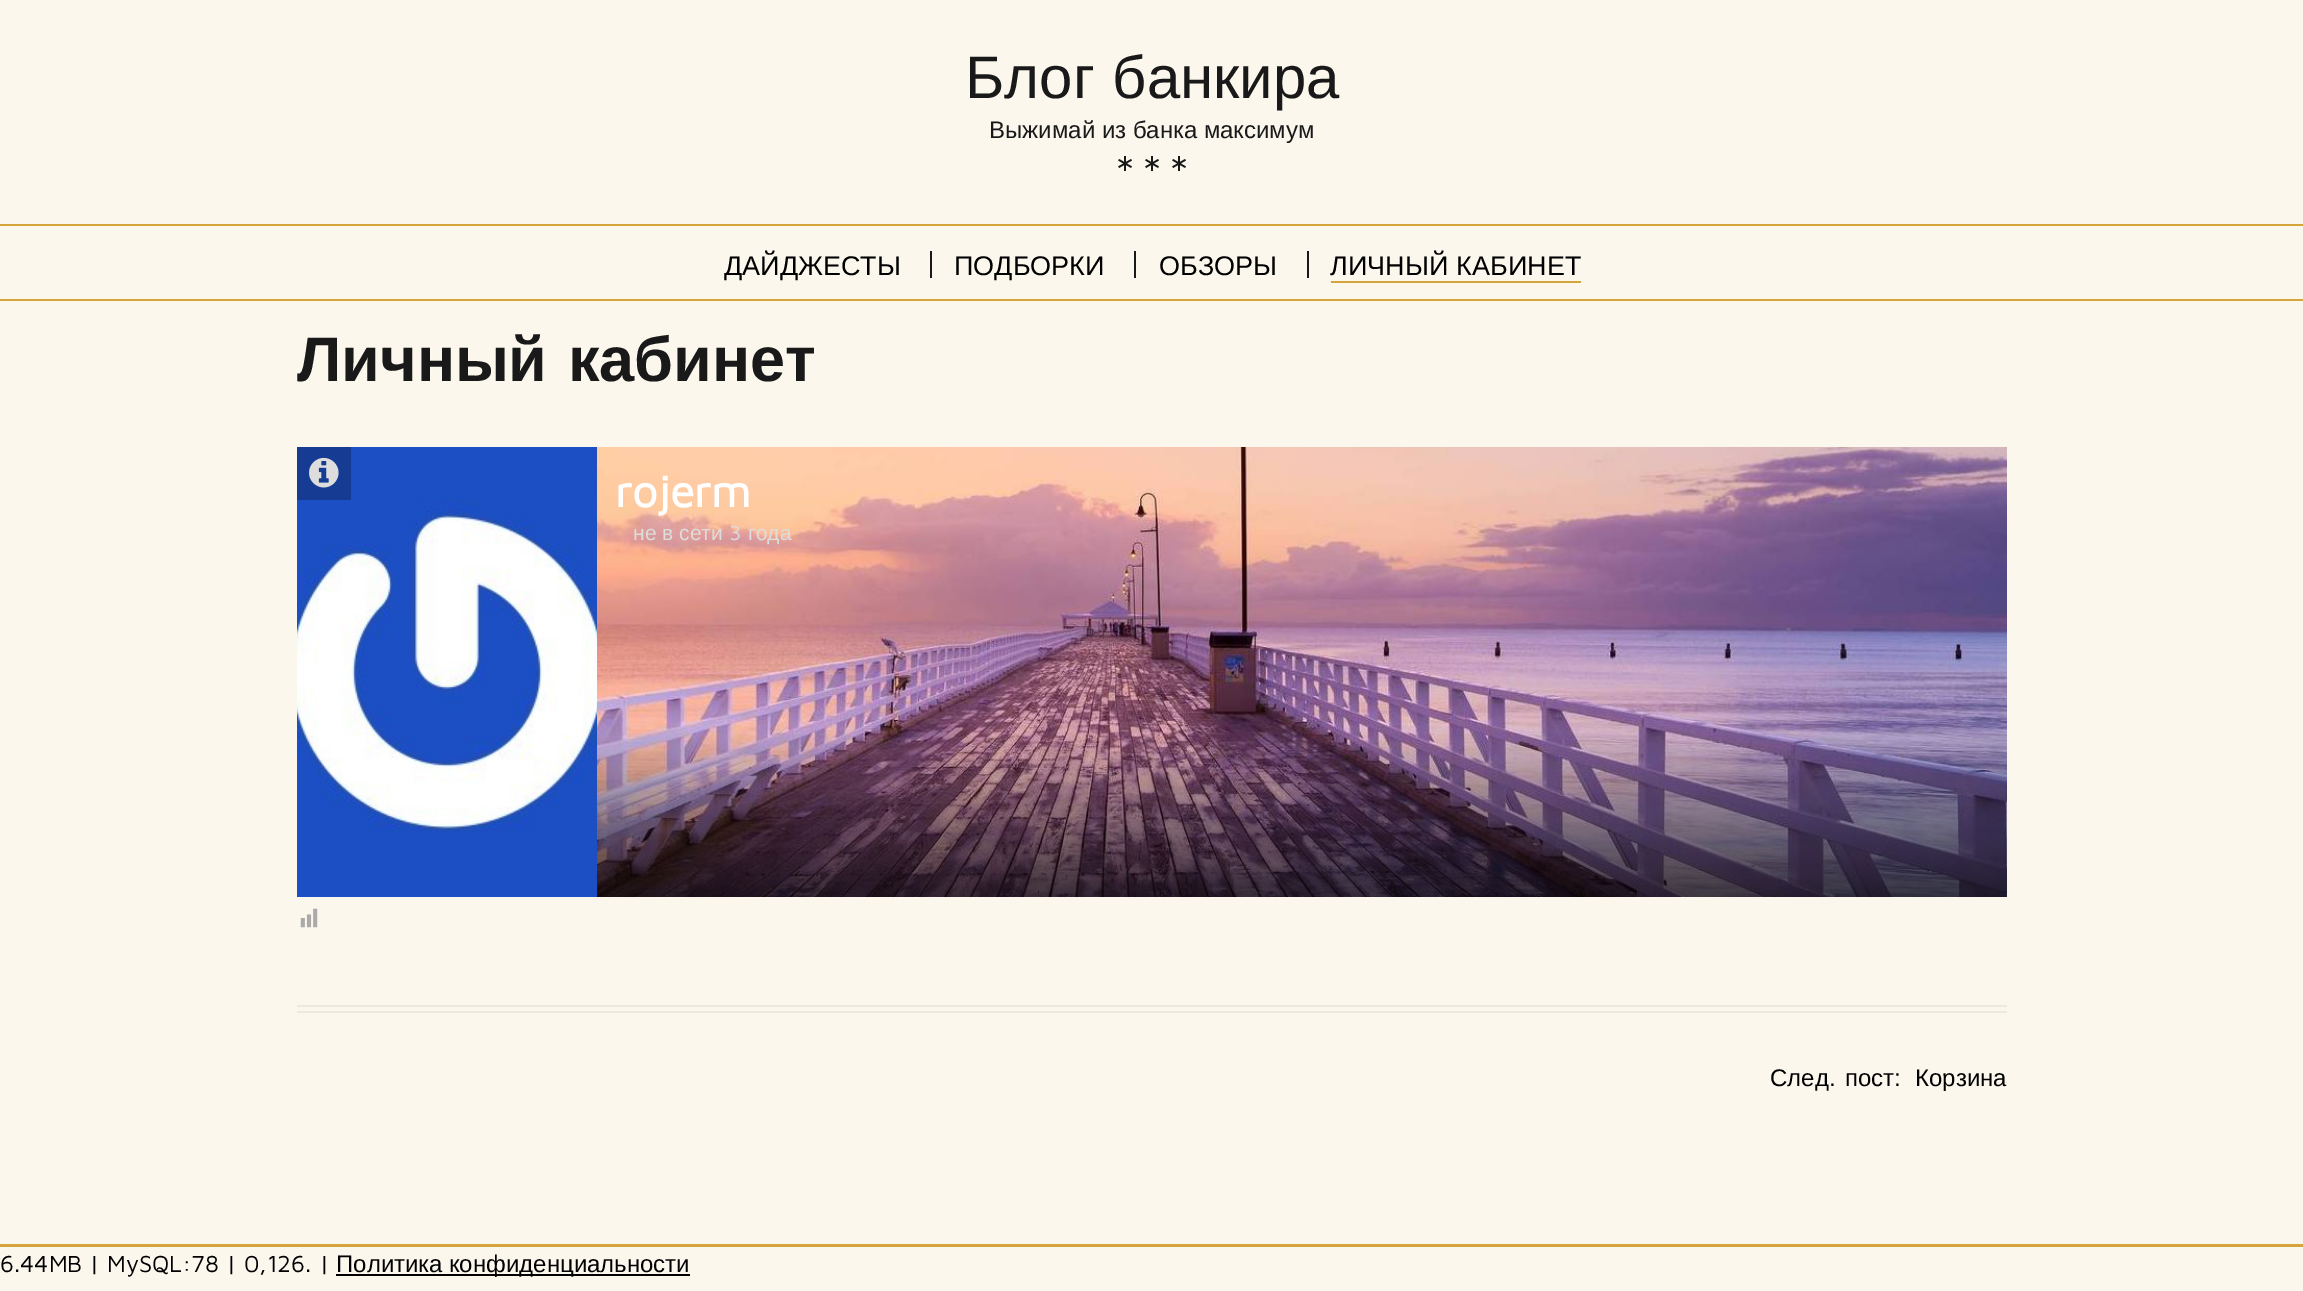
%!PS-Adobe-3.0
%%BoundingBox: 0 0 2303 1291
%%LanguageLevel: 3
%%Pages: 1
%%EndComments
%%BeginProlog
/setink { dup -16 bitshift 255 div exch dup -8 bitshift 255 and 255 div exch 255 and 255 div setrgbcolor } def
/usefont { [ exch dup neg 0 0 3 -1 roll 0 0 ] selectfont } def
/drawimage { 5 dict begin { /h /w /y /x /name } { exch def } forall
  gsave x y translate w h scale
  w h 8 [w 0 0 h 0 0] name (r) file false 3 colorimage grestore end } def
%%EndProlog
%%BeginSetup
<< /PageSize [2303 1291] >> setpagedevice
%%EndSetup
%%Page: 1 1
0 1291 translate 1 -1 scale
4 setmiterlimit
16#FBF7ED setink
0 0 2303 1291 rectfill
/LiberationSans-Regular 60 usefont
16#191919 setink
965 98 moveto 1 0 32 (Блог банкира) widthshow
/LiberationSans-Regular 24 usefont
989 138 moveto (Выжимай из банка максимум) show
/DejaVuSans-Regular 24 usefont
[
    [(∗) 1115 171]
    [(∗) 1142 171]
    [(∗) 1169 171]
] { aload pop moveto show } forall
16#D5A43B setink
0 224 2303 2 rectfill
/LiberationSans-Regular 27 usefont
16#000000 setink
724 275 moveto (ДАЙДЖЕСТЫ) show
16#191919 setink
930 251 2 27 rectfill
16#000000 setink
954 275 moveto (ПОДБОРКИ) show
16#191919 setink
1134 251 2 27 rectfill
16#000000 setink
1159 275 moveto (ОБЗОРЫ) show
16#191919 setink
1307 251 2 27 rectfill
16#000000 setink
1330 275 moveto 1 0 32 (ЛИЧНЫЙ КАБИНЕТ) widthshow
16#D5A43B setink
1331 281 250 2 rectfill
0 299 2303 2 rectfill
/LiberationSans-Bold 63 usefont
16#191919 setink
297 381 moveto 3 0 32 (Личный кабинет) widthshow
(img1.raw) 597 447 1410 450 drawimage
(img2.raw) 297 447 300 450 drawimage
16#153B93 setink
297 447 54 53 rectfill
(img3.raw) 309 457 30 31 drawimage
/MavenPro-Bold 45 usefont
16#FFFFFF setink
615 507 moveto (rojerm) show
/LiberationSans-Regular 21 usefont
16#DDDDDD setink
633 540 moveto (не в сети) show
/MavenPro-Regular 21 usefont
729 540 moveto (3) show
/LiberationSans-Regular 21 usefont
748 540 moveto (года) show
(img4.raw) 300 908 18 20 drawimage
16#EDE9DF setink
297 1005 1710 2 rectfill
297 1011 1710 2 rectfill
/LiberationSans-Regular 24 usefont
16#000000 setink
1770 1086 moveto 3 0 32 (След. пост:) widthshow
1915 1086 moveto (Корзина) show
16#D5A43B setink
0 1244 2303 3 rectfill
/MavenPro-Regular 24 usefont
16#000000 setink
0 1272 moveto (6.44MB | MySQL:78 | 0,126. |) show
336 1274 354 2 rectfill
/LiberationSans-Regular 24 usefont
336 1272 moveto (Политика конфиденциальности) show
showpage
%%EOF
